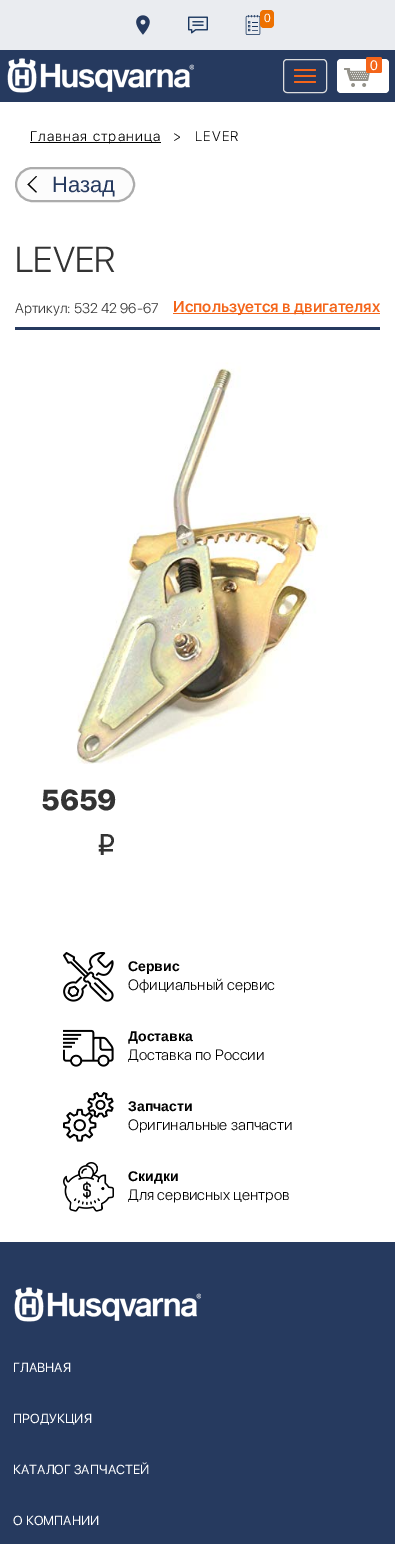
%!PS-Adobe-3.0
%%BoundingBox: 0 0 395 1544
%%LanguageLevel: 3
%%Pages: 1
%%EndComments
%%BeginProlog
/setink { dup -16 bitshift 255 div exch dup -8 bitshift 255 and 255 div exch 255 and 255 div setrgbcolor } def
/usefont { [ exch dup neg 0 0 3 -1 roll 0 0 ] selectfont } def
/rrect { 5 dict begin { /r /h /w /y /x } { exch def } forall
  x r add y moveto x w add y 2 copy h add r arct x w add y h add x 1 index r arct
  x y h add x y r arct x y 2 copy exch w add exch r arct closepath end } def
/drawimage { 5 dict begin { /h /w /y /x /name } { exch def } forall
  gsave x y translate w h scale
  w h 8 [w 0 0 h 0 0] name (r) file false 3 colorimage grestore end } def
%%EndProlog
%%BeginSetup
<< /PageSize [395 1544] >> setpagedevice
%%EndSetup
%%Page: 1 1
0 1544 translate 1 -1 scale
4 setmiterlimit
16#FFFFFF setink
0 0 395 1544 rectfill
16#EAECF0 setink
0 0 395 50 rectfill
(img1.raw) 136 15 14 20 drawimage
(img2.raw) 188 16 20 18 drawimage
(img3.raw) 245 15 16 20 drawimage
16#ED7102 setink
260 10 14 18 4 rrect fill
/LiberationSans-Regular 12 usefont
16#FFFFFF setink
264 22 moveto (0) show
16#263A5F setink
0 50 395 52 rectfill
(img4.raw) 7 58 187 35 drawimage
16#DDDDDD setink
283.5 59.5 43 33 3.5 rrect stroke
16#F4651A setink
294 69 22 2 1 rrect fill
294 75 22 2 1 rrect fill
294 81 22 2 1 rrect fill
16#FFFFFF setink
337 59 52 34 4 rrect fill
(img5.raw) 344 68 26 19 drawimage
16#F4651A setink
366 57 16 16 2 rrect fill
/LiberationSans-Regular 14 usefont
16#FFFFFF setink
370 70 moveto (0) show
16#000000 setink
30 142 131 1 rectfill
/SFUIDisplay-Light 14 usefont
30 141 moveto 1.1 0 (Главная страница) ashow
173 141 moveto 1.1 0 (>) ashow
195 141 moveto 1.1 0 (LEVER) ashow
16#FCFCFC setink
16 168 118 33 16.5 rrect gsave fill grestore
16#ACACAC setink
2 setlinewidth
stroke
16#000000 setink
27.5 184.5 moveto 36 176 lineto 37 176.5 lineto 28.5 185 lineto closepath fill
27.5 184.5 moveto 28.5 183.5 lineto 37 192 lineto 36 192.5 lineto closepath fill
/LiberationSans-Regular 22 usefont
16#263A5F setink
52 192 moveto (Назад) show
/SFUIDisplay-Light 36 usefont
16#333333 setink
15 272 moveto (LEVER) show
/SFUIDisplay-Light 14 usefont
15 313 moveto (Артикул: 532 42 96-67) show
16#F4651A setink
173 313 207 1 rectfill
/SFUIDisplay-SemiBold 16 usefont
173 312 moveto (Используется в двигателях) show
16#263A5F setink
15 327 365 3 rectfill
(img6.raw) 76 362 252 402 drawimage
/SFUIDisplay-Black 30 usefont
16#333333 setink
41 810 moveto (5659) show
/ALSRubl-Regular 30 usefont
96 855 moveto (i) show
(img7.raw) 63 952 51 50 drawimage
/LiberationSans-Bold 14 usefont
16#000000 setink
128 971 moveto (Сервис) show
/SFUIDisplay-Light 15 usefont
128 990 moveto (Официальный сервис) show
(img8.raw) 63 1029 51 38 drawimage
/LiberationSans-Bold 14 usefont
128 1041 moveto (Доставка) show
/SFUIDisplay-Light 15 usefont
128 1060 moveto (Доставка по России) show
(img9.raw) 63 1092 51 50 drawimage
/LiberationSans-Bold 14 usefont
128 1111 moveto (Запчасти) show
/SFUIDisplay-Light 15 usefont
128 1130 moveto (Оригинальные запчасти) show
(img10.raw) 63 1162 51 50 drawimage
/LiberationSans-Bold 14 usefont
128 1181 moveto (Скидки) show
/SFUIDisplay-Light 15 usefont
128 1200 moveto (Для сервисных центров) show
16#263A5F setink
0 1242 395 302 rectfill
(img4.raw) 14 1287 187 35 drawimage
/SFUIDisplay-Regular 13 usefont
16#FFFFFF setink
[
    [(ГЛАВНАЯ) 13 1372]
    [(ПРОДУКЦИЯ) 13 1423]
    [(КАТАЛОГ ЗАПЧАСТЕЙ) 13 1474]
    [(О КОМПАНИИ) 13 1525]
] { aload pop moveto show } forall
showpage
%%EOF
